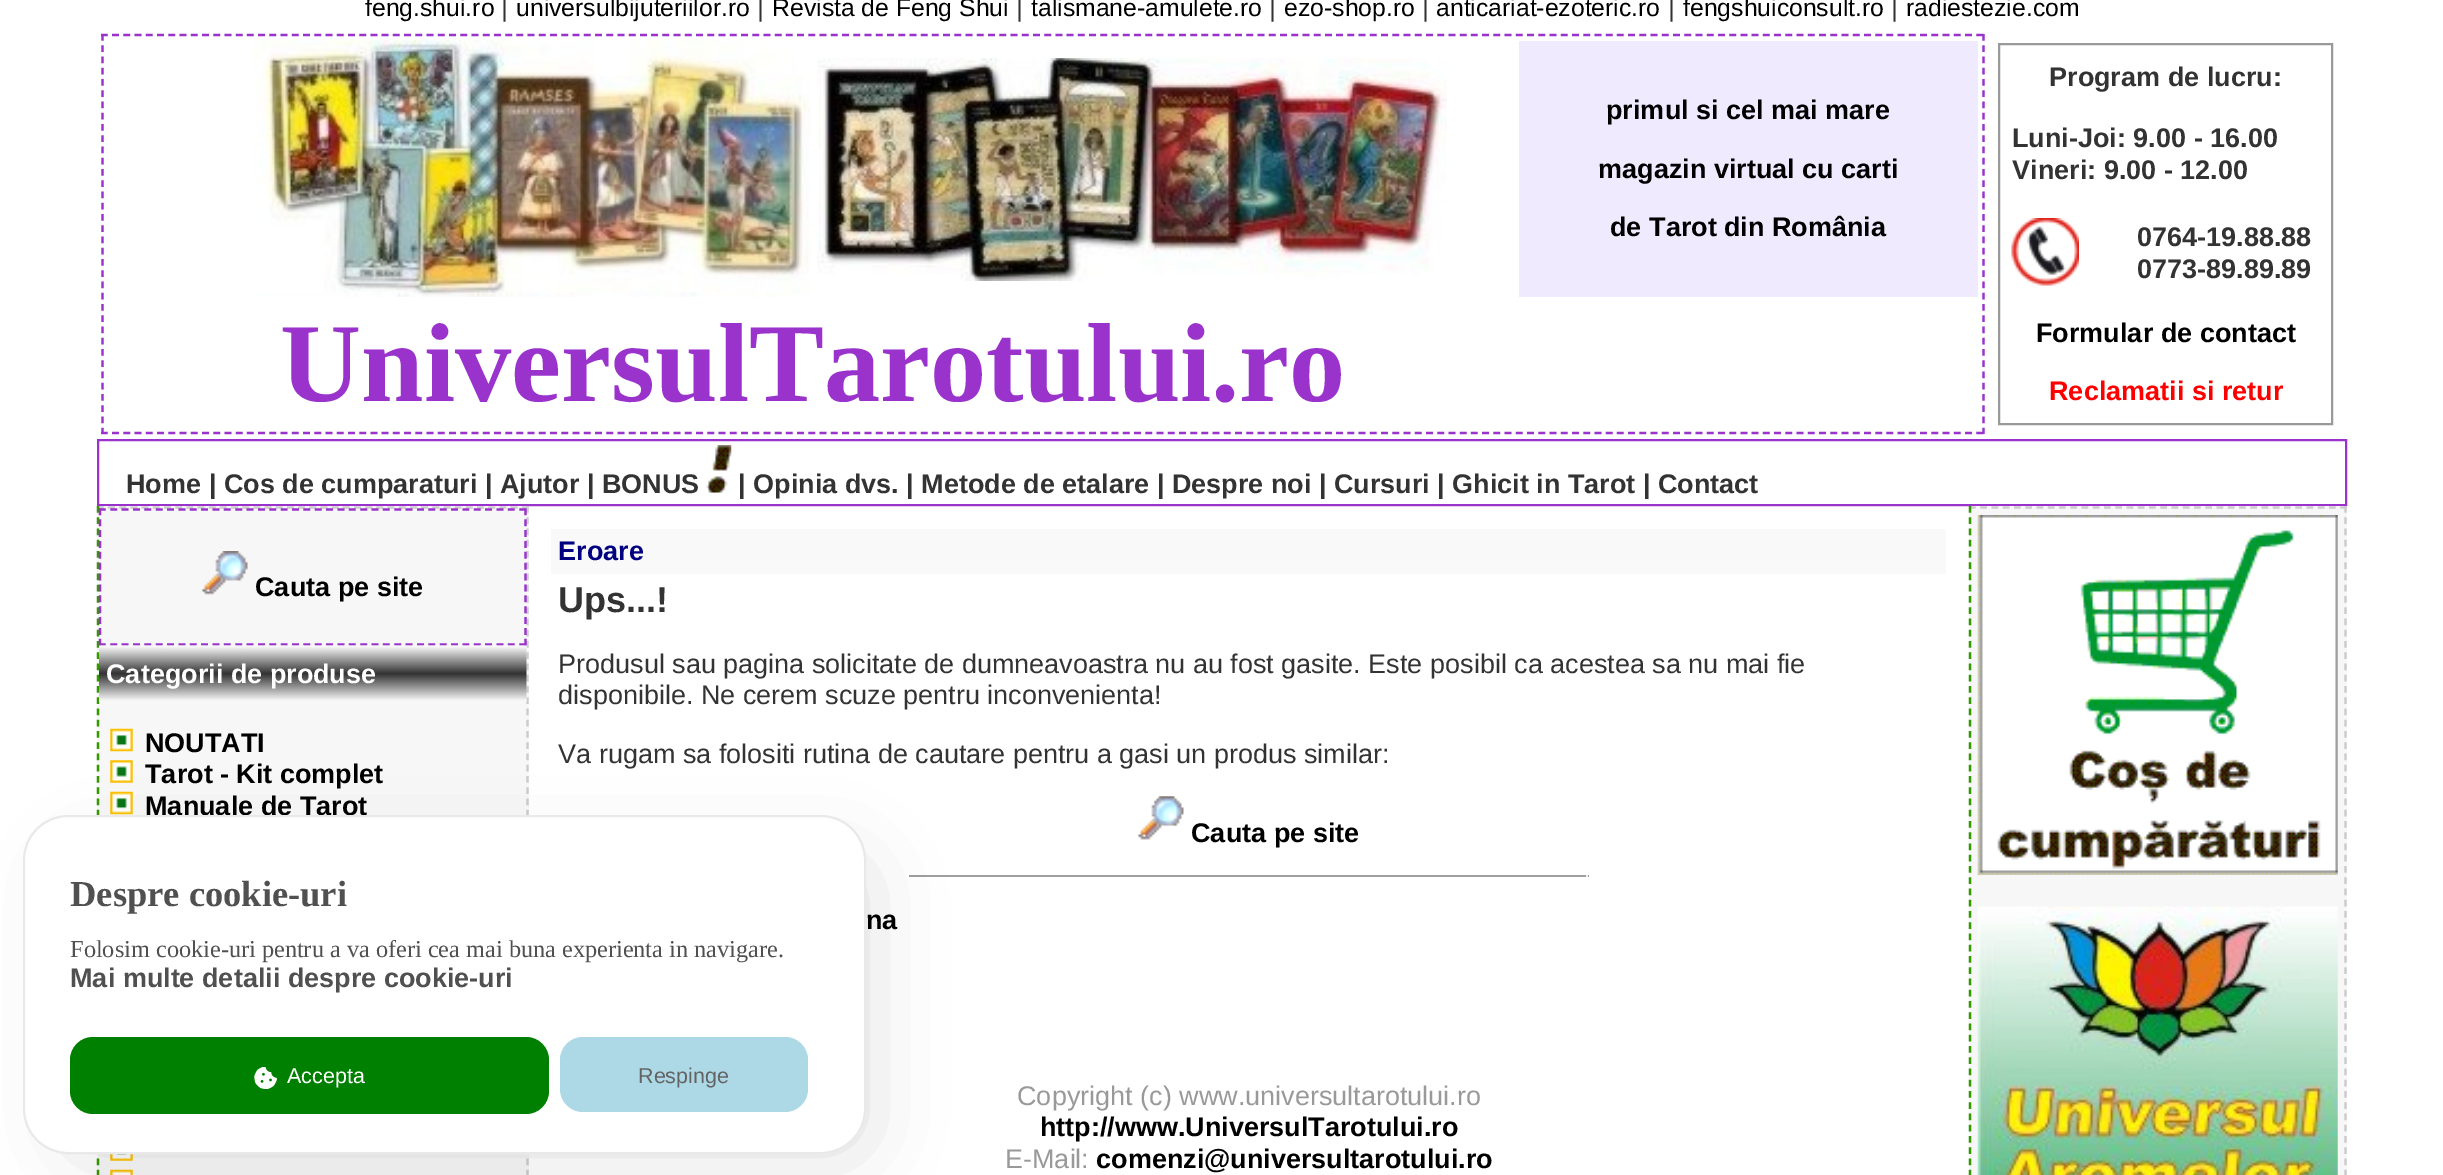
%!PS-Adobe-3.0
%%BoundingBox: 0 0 2443 1175
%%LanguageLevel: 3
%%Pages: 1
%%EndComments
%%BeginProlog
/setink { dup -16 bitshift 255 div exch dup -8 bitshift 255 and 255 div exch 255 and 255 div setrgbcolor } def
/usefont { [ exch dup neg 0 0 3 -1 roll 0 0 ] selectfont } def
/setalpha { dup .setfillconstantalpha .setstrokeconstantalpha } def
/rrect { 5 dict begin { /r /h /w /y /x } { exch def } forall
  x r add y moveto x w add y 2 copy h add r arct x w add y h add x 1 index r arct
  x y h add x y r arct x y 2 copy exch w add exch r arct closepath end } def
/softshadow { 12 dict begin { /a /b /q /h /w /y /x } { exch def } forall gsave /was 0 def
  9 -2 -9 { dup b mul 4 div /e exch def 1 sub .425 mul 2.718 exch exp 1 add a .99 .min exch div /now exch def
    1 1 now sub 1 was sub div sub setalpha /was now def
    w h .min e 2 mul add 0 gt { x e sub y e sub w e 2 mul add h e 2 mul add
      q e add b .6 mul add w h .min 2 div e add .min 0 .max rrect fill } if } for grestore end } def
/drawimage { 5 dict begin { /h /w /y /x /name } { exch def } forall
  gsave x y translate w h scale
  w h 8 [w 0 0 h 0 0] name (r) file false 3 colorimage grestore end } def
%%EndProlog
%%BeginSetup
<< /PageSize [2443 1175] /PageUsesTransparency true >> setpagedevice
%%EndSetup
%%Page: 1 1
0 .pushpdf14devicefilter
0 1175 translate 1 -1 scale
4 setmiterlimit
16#FFFFFF setink
0 0 2443 1175 rectfill
/LiberationSans-Regular 24.75 usefont
16#000000 setink
365 16 moveto (feng.shui.ro) show
/LiberationSans-Regular 27 usefont
16#333333 setink
501 16 moveto (|) show
/LiberationSans-Regular 24.75 usefont
16#000000 setink
516 16 moveto (universulbijuteriilor.ro) show
/LiberationSans-Regular 27 usefont
16#333333 setink
757 16 moveto (|) show
/LiberationSans-Regular 24.75 usefont
16#000000 setink
772 16 moveto (Revista de Feng Shui) show
/LiberationSans-Regular 27 usefont
16#333333 setink
1016 16 moveto (|) show
/LiberationSans-Regular 24.75 usefont
16#000000 setink
1031 16 moveto (talismane-amulete.ro) show
/LiberationSans-Regular 27 usefont
16#333333 setink
1269 16 moveto (|) show
/LiberationSans-Regular 24.75 usefont
16#000000 setink
1284 16 moveto (ezo-shop.ro) show
/LiberationSans-Regular 27 usefont
16#333333 setink
1422 16 moveto (|) show
/LiberationSans-Regular 24.75 usefont
16#000000 setink
1436 16 moveto (anticariat-ezoteric.ro) show
/LiberationSans-Regular 27 usefont
16#333333 setink
1668 16 moveto (|) show
/LiberationSans-Regular 24.75 usefont
16#000000 setink
1683 16 moveto (fengshuiconsult.ro) show
/LiberationSans-Regular 27 usefont
16#333333 setink
1891 16 moveto (|) show
/LiberationSans-Regular 24.75 usefont
16#000000 setink
1906 16 moveto (radiestezie.com) show
16#9933CC setink
2.2 setlinewidth
[6.75 4.48] 0 setdash
101 35 moveto 1984.5 35 lineto stroke
[6.75 4.5] 0 setdash
1983.5 34 moveto 1983.5 434 lineto stroke
[6.75 4.48] 0 setdash
101 433 moveto 1984.5 433 lineto stroke
[6.75 4.5] 0 setdash
102.5 34 moveto 102.5 434 lineto stroke
(img1.raw) 252 40 559 257 drawimage
(img2.raw) 817 58 630 223 drawimage
16#F0EAFF setink
1519 41 459 256 rectfill
/LiberationSans-Bold 27 usefont
16#000000 setink
[
    [(primul si cel mai mare) 1606 119]
    [(magazin virtual cu carti) 1598 178]
    [(de Tarot din România) 1610 236]
] { aload pop moveto show } forall
/LiberationSerif-Bold 112.5 usefont
16#9933CC setink
280 401 moveto (UniversulTarotului.ro) show
16#999999 setink
2 setlinewidth
[] 0 setdash
1999 44 333 380 rectstroke
/LiberationSans-Bold 27 usefont
16#333333 setink
[
    [(Program de lucru:) 2049 86]
    [(Luni-Joi: 9.00 - 16.00) 2012 147]
    [(Vineri: 9.00 - 12.00) 2012 179]
] { aload pop moveto show } forall
(img3.raw) 2011 218 68 68 drawimage
2137 246 moveto (0764-19.88.88) show
2137 278 moveto (0773-89.89.89) show
16#000000 setink
2036 342 moveto (Formular de contact) show
16#FF0000 setink
2049 400 moveto (Reclamatii si retur) show
16#9933CC setink
98 440 2248 65 rectstroke
16#333333 setink
126 493 moveto (Home | Cos de cumparaturi | Ajutor | BONUS) show
(img4.raw) 706 445 26 48 drawimage
738 493 moveto (| Opinia dvs. | Metode de etalare | Despre noi | Cursuri | Ghicit in Tarot | Contact) show
16#F7F7F7 setink
97 506 432 669 rectfill
16#CCCCCC setink
2.2 setlinewidth
[6.75 4.43] 0 setdash
97 507.5 moveto 529 507.5 lineto stroke
[6.75 4.5] 0 setdash
527.5 506 moveto 527.5 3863 lineto stroke
16#339900 setink
98 506 moveto 98 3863 lineto stroke
16#9933CC setink
[6.75 4.61] 0 setdash
99 509.5 moveto 526.5 509.5 lineto stroke
[6.75 4.12] 0 setdash
525.5 508.5 moveto 525.5 646 lineto stroke
[6.75 4.61] 0 setdash
99 644.5 moveto 526.5 644.5 lineto stroke
[6.75 4.12] 0 setdash
100 508.5 moveto 100 646 lineto stroke
(img5.raw) 202 551 46 44 drawimage
16#000000 setink
255 596 moveto (Cauta pe site) show
(img6.raw) 99 645 428 57 drawimage
16#FFFFFF setink
106 683 moveto (Categorii de produse) show
(img7.raw) 110 728 23 24 drawimage
16#000000 setink
145 752 moveto (NOUTATI) show
(img8.raw) 110 760 23 23 drawimage
145 783 moveto (Tarot - Kit complet) show
(img7.raw) 110 791 23 24 drawimage
145 815 moveto (Manuale de Tarot) show
(img9.raw) 110 1154 23 7 drawimage
(img10.raw) 110 1169 23 6 drawimage
16#F9F9F9 setink
551 529 1395 45 rectfill
16#000080 setink
558 560 moveto (Eroare) show
/LiberationSans-Bold 36 usefont
16#333333 setink
558 612 moveto (Ups...!) show
/LiberationSans-Regular 27 usefont
[
    [(Produsul sau pagina solicitate de dumneavoastra nu au fost gasite. Este posibil ca acestea sa nu mai fie) 558 673]
    [(disponibile. Ne cerem scuze pentru inconvenienta!) 558 704]
    [(Va rugam sa folositi rutina de cautare pentru a gasi un produs similar:) 558 763]
] { aload pop moveto show } forall
(img11.raw) 1138 796 46 44 drawimage
/LiberationSans-Bold 27 usefont
16#000000 setink
1191 842 moveto (Cauta pe site) show
16#9F9F9F setink
909 875 680 2 rectfill
16#EEEEEE setink
1586 875 2 2 rectfill
16#000000 setink
866 929 moveto (na) show
/LiberationSans-Regular 27 usefont
16#999999 setink
1017 1105 moveto (Copyright \(c\) www.universultarotului.ro) show
/LiberationSans-Bold 27 usefont
16#000000 setink
1040 1136 moveto (http://www.UniversulTarotului.ro) show
/LiberationSans-Regular 27 usefont
16#999999 setink
1005 1168 moveto (E-Mail:) show
/LiberationSans-Bold 27 usefont
16#000000 setink
1096 1168 moveto (comenzi@universultarotului.ro) show
16#F7F7F7 setink
1969 506 378 669 rectfill
16#CCCCCC setink
[6.75 4.5] 0 setdash
1969 507.5 moveto 2347 507.5 lineto stroke
2345.5 506 moveto 2345.5 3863 lineto stroke
16#339900 setink
1970 506 moveto 1970 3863 lineto stroke
(img12.raw) 1977 515 361 360 drawimage
(img13.raw) 1977 906 361 269 drawimage
16#000000 setink
74 866 786 282 16 40.5 0.15 softshadow
16#FFFFFF setink
24 816 841 337 44 rrect gsave fill grestore
16#E9E9E9 setink
2 setlinewidth
[] 0 setdash
stroke
/LiberationSerif-Bold 36.5 usefont
16#505050 setink
70 906 moveto (Despre cookie-uri) show
/LiberationSerif-Regular 24.3 usefont
70 957 moveto (Folosim cookie-uri pentru a va oferi cea mai buna experienta in navigare.) show
/LiberationSans-Bold 27 usefont
70 987 moveto (Mai multe detalii despre cookie-uri) show
16#008000 setink
70 1037 479 77 23 rrect fill
(img14.raw) 254 1067 23 22 drawimage
/LiberationSans-Regular 21.5 usefont
16#FFFFFF setink
287 1083 moveto (Accepta) show
16#ADD8E6 setink
560 1037 248 75 23 rrect fill
16#636363 setink
638 1083 moveto (Respinge) show
.poppdf14devicefilter showpage
%%EOF
